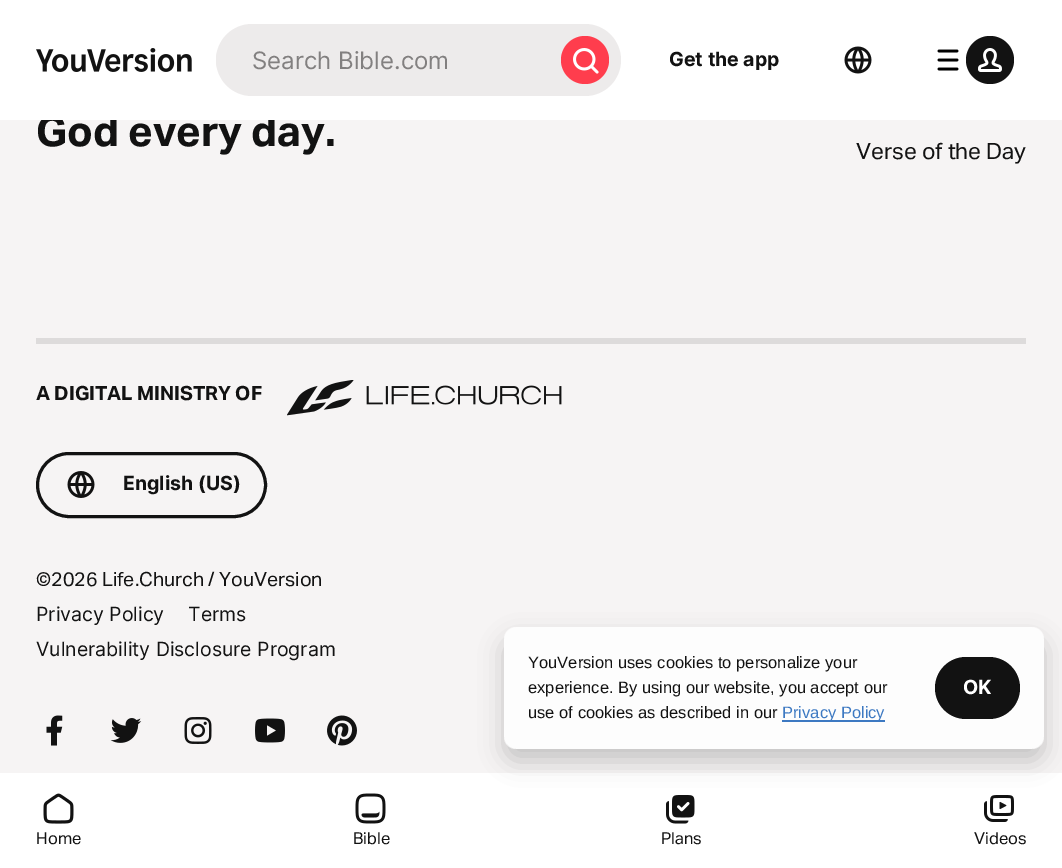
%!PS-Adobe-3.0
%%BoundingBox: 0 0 1062 868
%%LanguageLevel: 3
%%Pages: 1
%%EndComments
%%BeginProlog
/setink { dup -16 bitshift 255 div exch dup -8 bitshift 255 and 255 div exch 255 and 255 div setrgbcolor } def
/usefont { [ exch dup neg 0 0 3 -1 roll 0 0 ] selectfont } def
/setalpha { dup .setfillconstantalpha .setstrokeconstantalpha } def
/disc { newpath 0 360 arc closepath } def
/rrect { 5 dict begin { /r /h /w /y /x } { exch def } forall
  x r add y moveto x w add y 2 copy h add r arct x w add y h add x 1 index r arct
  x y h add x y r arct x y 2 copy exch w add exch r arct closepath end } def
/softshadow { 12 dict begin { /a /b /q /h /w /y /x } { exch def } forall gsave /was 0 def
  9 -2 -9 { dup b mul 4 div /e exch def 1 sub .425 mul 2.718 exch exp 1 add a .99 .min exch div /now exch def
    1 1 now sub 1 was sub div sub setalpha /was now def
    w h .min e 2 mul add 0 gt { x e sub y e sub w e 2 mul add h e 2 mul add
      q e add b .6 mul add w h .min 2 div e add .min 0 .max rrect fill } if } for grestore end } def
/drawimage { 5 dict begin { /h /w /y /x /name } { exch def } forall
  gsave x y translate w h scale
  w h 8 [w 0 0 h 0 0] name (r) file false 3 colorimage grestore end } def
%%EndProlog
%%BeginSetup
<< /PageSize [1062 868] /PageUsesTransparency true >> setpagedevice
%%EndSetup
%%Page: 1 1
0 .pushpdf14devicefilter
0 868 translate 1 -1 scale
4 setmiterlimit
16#F6F4F4 setink
0 0 1062 868 rectfill
/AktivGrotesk-Bold 42 usefont
16#121212 setink
36 146 moveto (God every day.) show
16#FFFFFF setink
0 0 1062 120 rectfill
(img1.raw) 36 48 156 24 drawimage
16#EDEBEB setink
216 24 405 72 36 rrect fill
216 36 333 48 24 rrect fill
/Inter-Regular 24 usefont
16#828080 setink
252 69 moveto (Search Bible.com) show
16#FF3D4D setink
585 60 24 disc fill
(img2.raw) 573 48 26 26 drawimage
/Inter-Bold 19.5 usefont
16#121212 setink
669 66 moveto (Get the app) show
(img3.raw) 844 46 28 28 drawimage
(img4.raw) 937 49 22 22 drawimage
990 60 24 disc fill
(img5.raw) 978 48 24 24 drawimage
/AktivGrotesk-Regular 22.5 usefont
856 159 moveto (Verse of the Day) show
16#DDDBDB setink
36 338 990 6 rectfill
/AktivGrotesk-Bold 19.5 usefont
16#121212 setink
36 400 moveto (A DIGITAL MINISTRY OF) show
(img6.raw) 287 380 275 36 drawimage
3 setlinewidth
37.5 453.5 228 63 31.5 rrect stroke
(img7.raw) 67 471 28 27 drawimage
/Inter-Bold 19.5 usefont
123 490 moveto (English \(US\)) show
/AktivGrotesk-Regular 19.5 usefont
36 586 moveto (©2026 Life.Church / YouVersion) show
/Inter-Regular 19.5 usefont
[
    [(Privacy Policy) 36 621]
    [(Terms) 188 621]
    [(Vulnerability Disclosure Program) 36 656]
] { aload pop moveto show } forall
(img8.raw) 46 715 17 31 drawimage
(img9.raw) 110 718 32 25 drawimage
(img10.raw) 184 717 28 27 drawimage
(img11.raw) 255 718 30 25 drawimage
(img12.raw) 327 715 30 31 drawimage
16#FFFFFF setink
0 773 1062 95 rectfill
(img15.raw) 666 795 29 29 drawimage
(img16.raw) 984 795 30 27 drawimage
gsave
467 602 moveto 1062 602 lineto 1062 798 lineto 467 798 lineto closepath 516 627 moveto 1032 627 lineto 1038.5 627 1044 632.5 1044 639 curveto 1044 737 lineto 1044 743.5 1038.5 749 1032 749 curveto 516 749 lineto 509.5 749 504 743.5 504 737 curveto 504 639 lineto 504 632.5 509.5 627 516 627 curveto closepath eoclip newpath
16#000000 setink
504 639 540 122 12 12 0.2 softshadow
grestore
0.8 setalpha
504 627 540 122 12 rrect fill
/LiberationSans-Regular 16.5 usefont
1 setalpha
16#121212 setink
[
    [(YouVersion uses cookies to personalize your) 528 668]
    [(experience. By using our website, you accept our) 528 693]
    [(use of cookies as described in our) 528 718]
] { aload pop moveto show } forall
16#3D79C2 setink
782 720 103 2 rectfill
782 718 moveto (Privacy Policy) show
16#121212 setink
935 657 85 62 31 rrect fill
/Inter-Bold 19.5 usefont
16#FFFFFF setink
963 694 moveto (OK) show
(img13.raw) 43 793 31 31 drawimage
/AktivGrotesk-Regular 16.5 usefont
16#121212 setink
36 844 moveto (Home) show
(img14.raw) 355 793 31 31 drawimage
[
    [(Bible) 353 844]
    [(Plans) 661 844]
    [(Videos) 974 844]
] { aload pop moveto show } forall
.poppdf14devicefilter showpage
%%EOF
